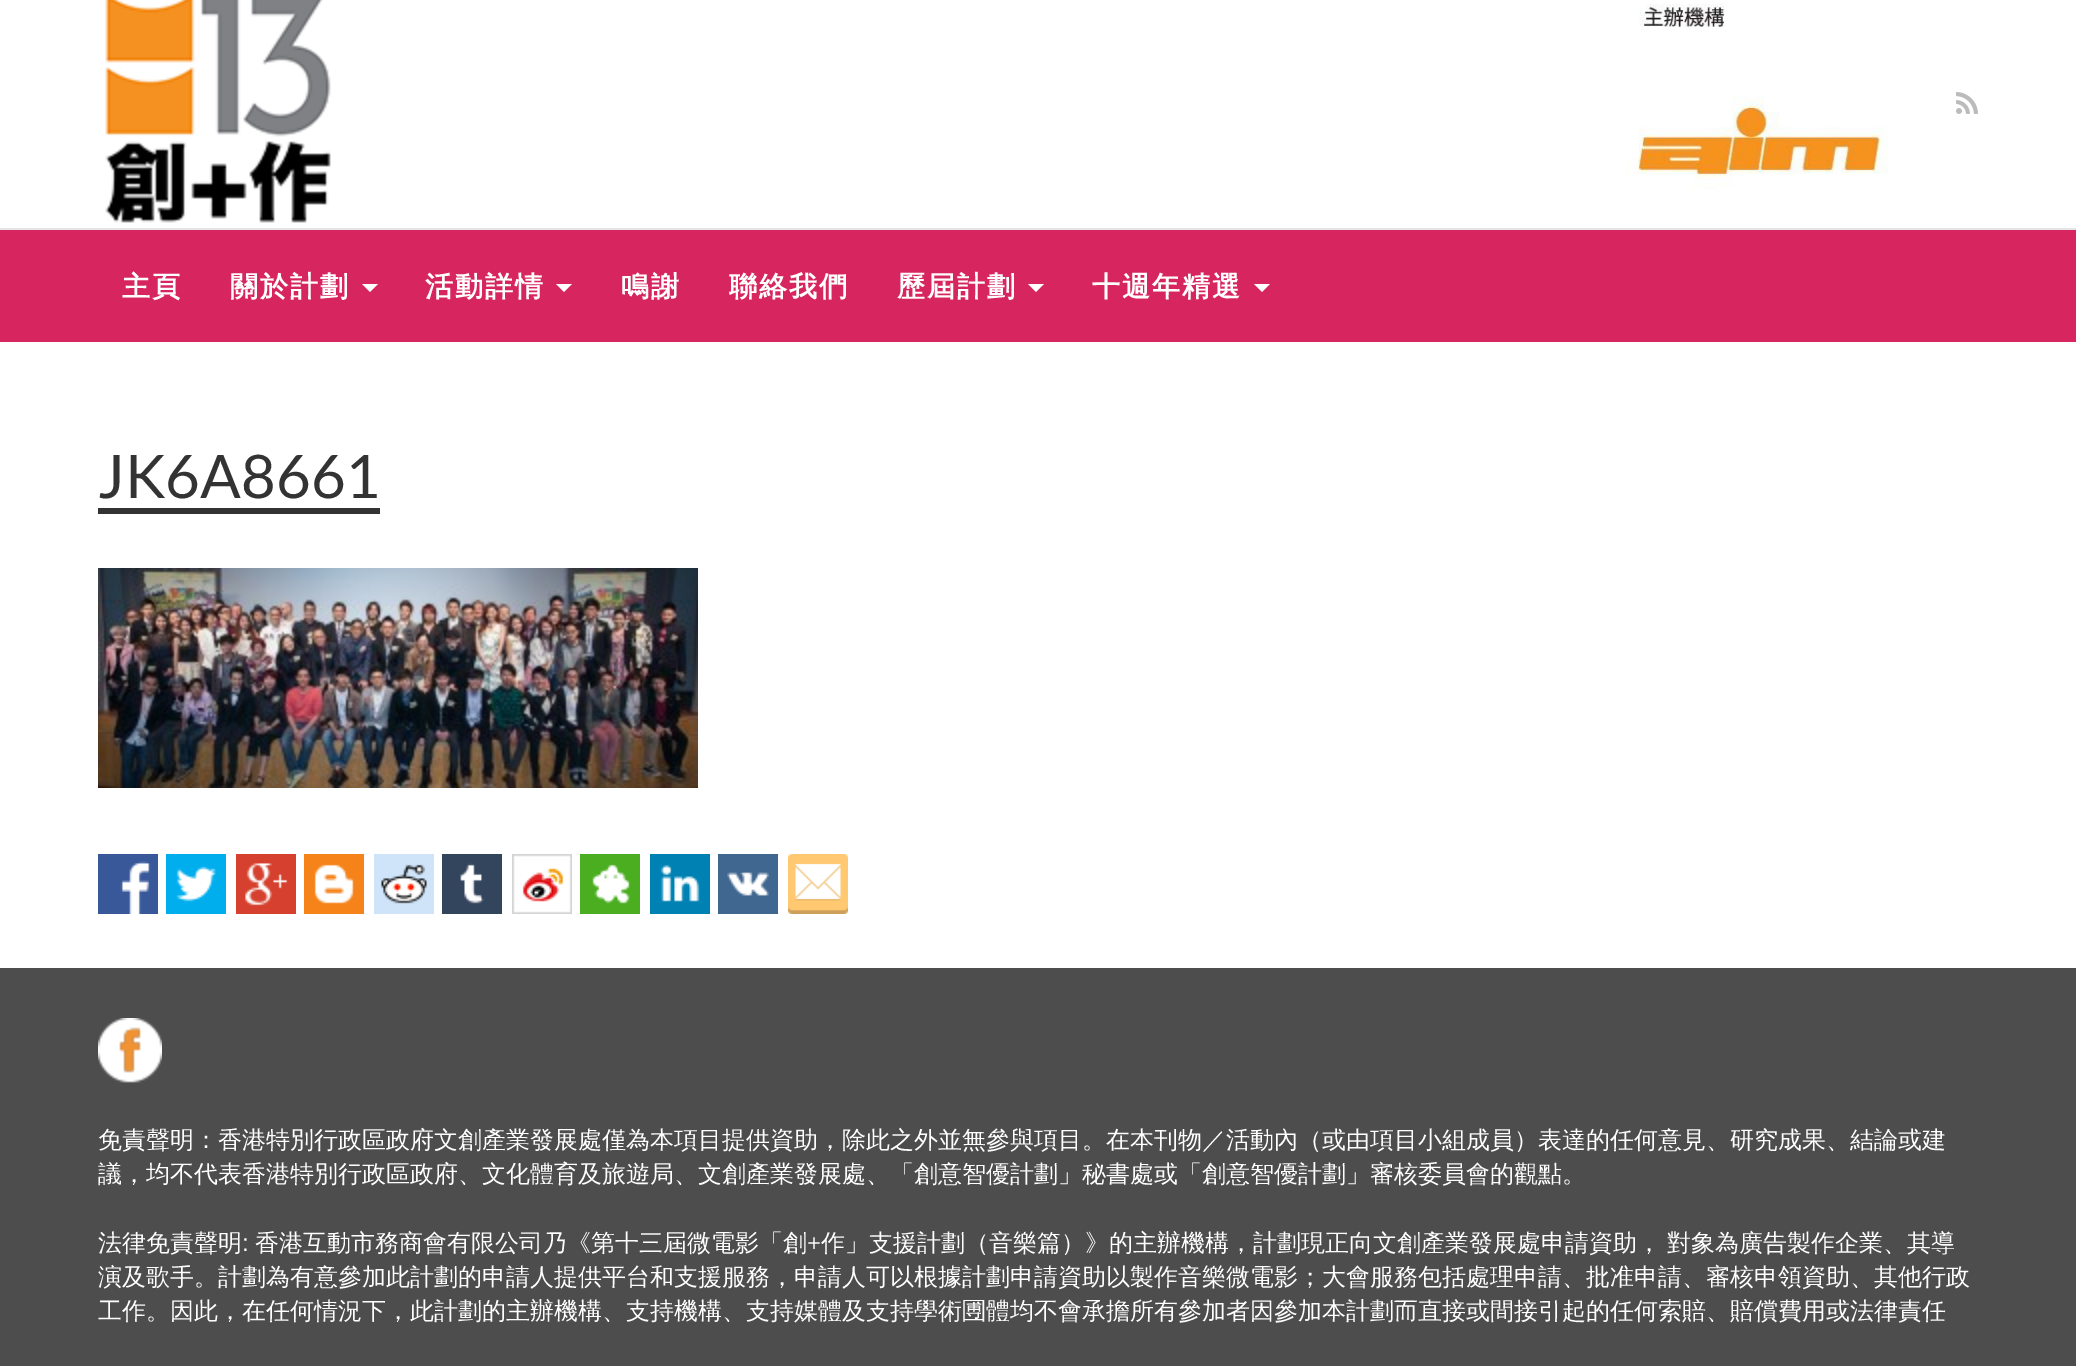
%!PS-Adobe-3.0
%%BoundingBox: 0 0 2076 1366
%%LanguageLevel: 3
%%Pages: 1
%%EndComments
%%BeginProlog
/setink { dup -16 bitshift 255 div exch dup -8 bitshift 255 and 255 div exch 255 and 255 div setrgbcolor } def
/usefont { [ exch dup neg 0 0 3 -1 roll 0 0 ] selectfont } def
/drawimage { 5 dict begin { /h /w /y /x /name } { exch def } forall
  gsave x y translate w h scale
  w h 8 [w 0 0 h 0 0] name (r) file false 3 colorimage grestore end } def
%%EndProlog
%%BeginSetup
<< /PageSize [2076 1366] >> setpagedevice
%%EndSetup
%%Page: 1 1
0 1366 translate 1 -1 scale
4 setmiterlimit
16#FFFFFF setink
0 0 2076 1366 rectfill
16#E5E5E5 setink
0 228 2076 2 rectfill
(img1.raw) 105 0 226 223 drawimage
(img2.raw) 1625 3 263 186 drawimage
(img3.raw) 1956 92 22 22 drawimage
16#D6255F setink
0 230 2076 112 rectfill
/WenQuanYiZenHei-Bold 28 usefont
16#FFFFFF setink
122 296 moveto 2 0 (主頁) ashow
230 296 moveto 2 0 (關於計劃) ashow
362 284 moveto 378 284 lineto 370 292 lineto closepath fill
425 296 moveto 2 0 (活動詳情) ashow
556 284 moveto 572 284 lineto 564 292 lineto closepath fill
621 296 moveto 2 0 (鳴謝) ashow
729 296 moveto 2 0 (聯絡我們) ashow
897 296 moveto 2 0 (歷屆計劃) ashow
1028 284 moveto 1044 284 lineto 1036 292 lineto closepath fill
1092 296 moveto 2 0 (十週年精選) ashow
1254 284 moveto 1270 284 lineto 1262 292 lineto closepath fill
/Lato-Regular 60 usefont
16#333333 setink
98 498 moveto (JK6A8661) show
98 508 282 6 rectfill
(img4.raw) 98 568 600 220 drawimage
(img5.raw) 98 854 60 60 drawimage
(img6.raw) 166 854 60 60 drawimage
(img7.raw) 236 854 60 60 drawimage
(img8.raw) 304 854 60 60 drawimage
(img9.raw) 374 854 60 60 drawimage
(img10.raw) 442 854 60 60 drawimage
(img11.raw) 512 854 60 60 drawimage
(img12.raw) 580 854 60 60 drawimage
(img13.raw) 650 854 60 60 drawimage
(img14.raw) 718 854 60 60 drawimage
(img15.raw) 788 854 60 60 drawimage
16#4D4D4D setink
0 968 2076 398 rectfill
(img16.raw) 98 1018 64 65 drawimage
/WenQuanYiZenHei-Medium 24 usefont
16#FFFFFF setink
[
    [(免責聲明：香港特別行政區政府文創產業發展處僅為本項目提供資助，除此之外並無參與項目。在本刊物／活動內（或由項目小組成員）表達的任何意見、研究成果、結論或建) 98 1148]
    [(議，均不代表香港特別行政區政府、文化體育及旅遊局、文創產業發展處、「創意智優計劃」秘書處或「創意智優計劃」審核委員會的觀點。) 98 1182]
    [(法律免責聲明) 98 1251]
] { aload pop moveto show } forall
/LiberationSans-Regular 24 usefont
242 1251 moveto (:) show
/WenQuanYiZenHei-Medium 24 usefont
255 1251 moveto (香港互動市務商會有限公司乃《第十三屆微電影「創) show
/LiberationSans-Regular 24 usefont
807 1251 moveto (+) show
/WenQuanYiZenHei-Medium 24 usefont
821 1251 moveto -1 0 32 (作」支援計劃（音樂篇）》的主辦機構，計劃現正向文創產業發展處申請資助， 對象為廣告製作企業、其導) widthshow
98 1285 moveto (演及歌手。計劃為有意參加此計劃的申請人提供平台和支援服務，申請人可以根據計劃申請資助以製作音樂微電影；大會服務包括處理申請、批准申請、審核申領資助、其他行政) show
98 1319 moveto (工作。因此，在任何情況下，此計劃的主辦機構、支持機構、支持媒體及支持學術圑體均不會承擔所有參加者因參加本計劃而直接或間接引起的任何索賠、賠償費用或法律責任) show
showpage
%%EOF
